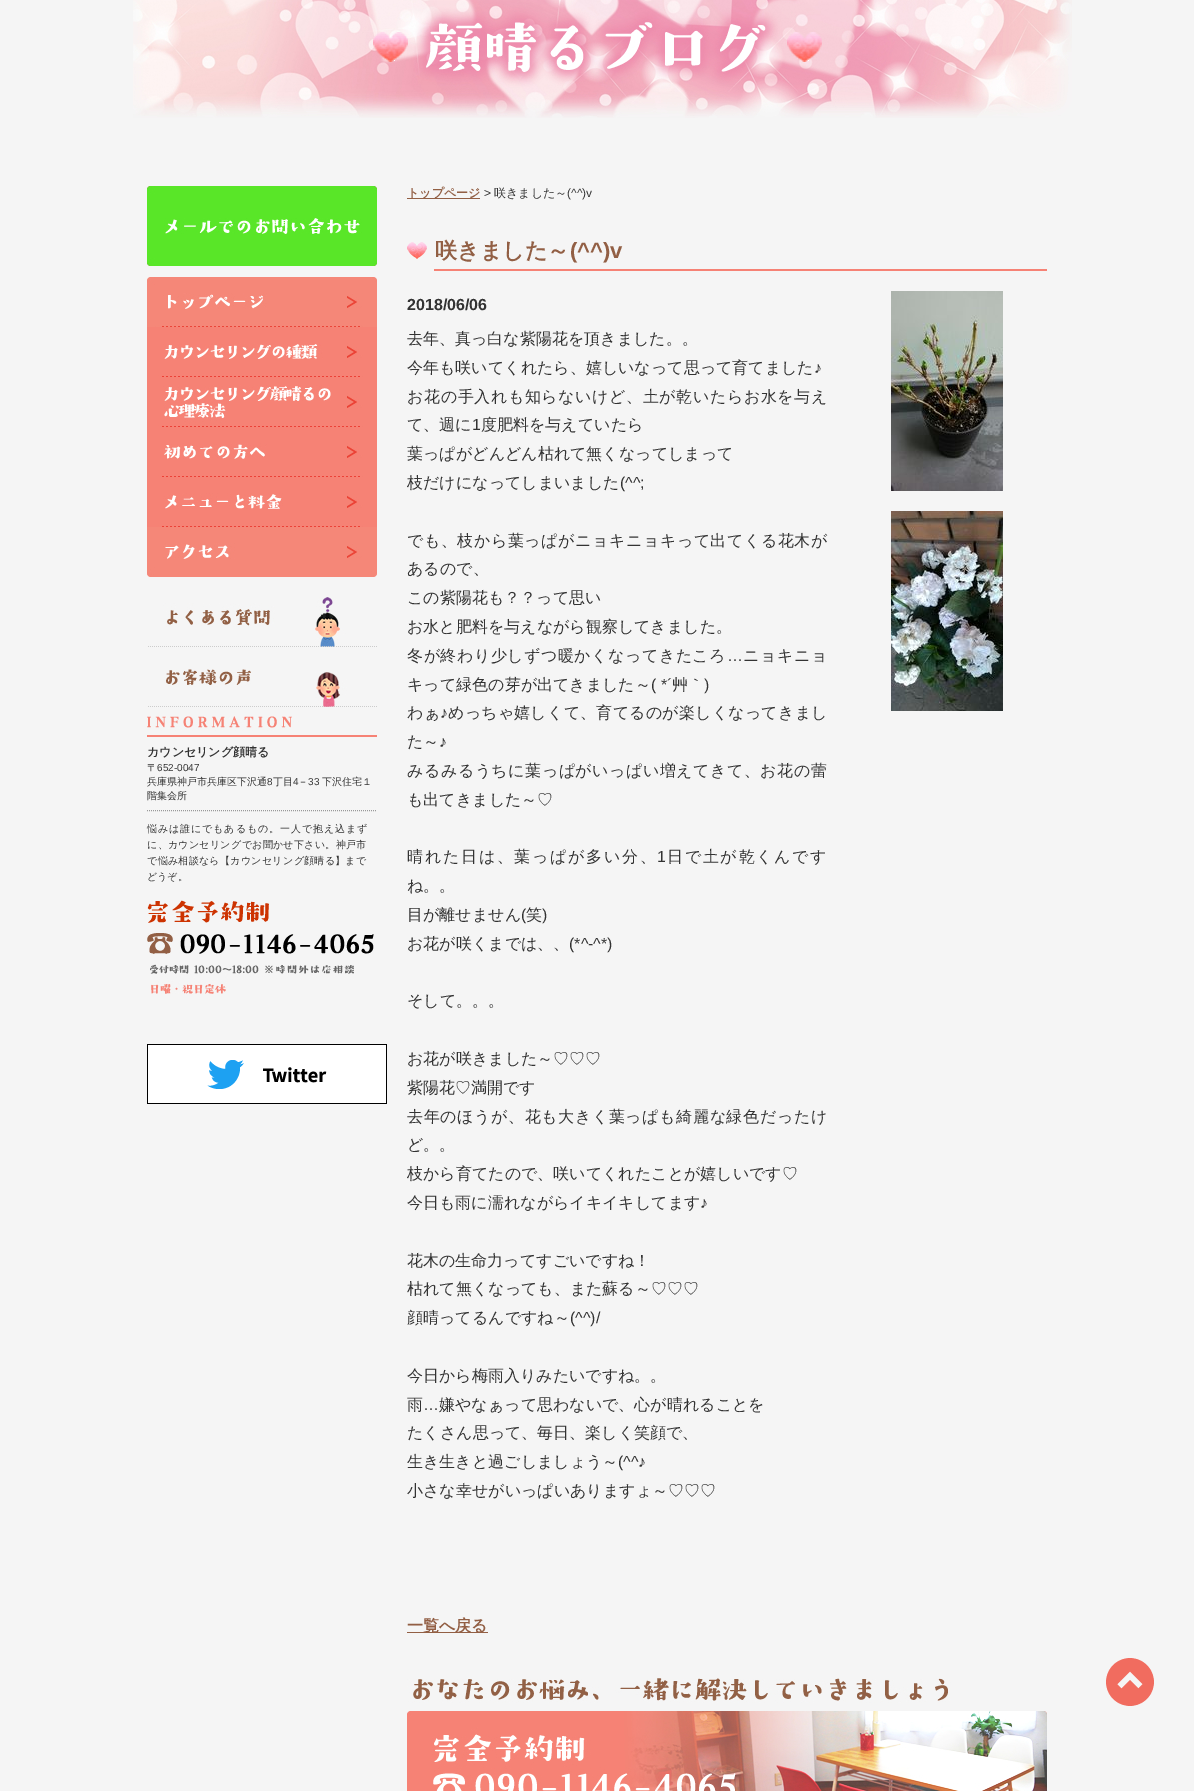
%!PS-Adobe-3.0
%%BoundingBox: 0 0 1194 1791
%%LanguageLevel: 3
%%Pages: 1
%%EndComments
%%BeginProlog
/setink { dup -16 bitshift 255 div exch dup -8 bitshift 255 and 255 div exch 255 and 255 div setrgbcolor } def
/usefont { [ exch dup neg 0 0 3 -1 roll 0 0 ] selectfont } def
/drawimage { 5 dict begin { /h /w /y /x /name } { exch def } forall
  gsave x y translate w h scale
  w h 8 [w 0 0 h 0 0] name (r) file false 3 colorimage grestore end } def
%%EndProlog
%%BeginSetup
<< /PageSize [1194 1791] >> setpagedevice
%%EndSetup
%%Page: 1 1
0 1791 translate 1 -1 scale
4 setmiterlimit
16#F5F5F5 setink
0 0 1194 1791 rectfill
(img1.raw) 133 0 939 118 drawimage
(img2.raw) 147 186 230 80 drawimage
(img3.raw) 147 277 230 50 drawimage
(img4.raw) 147 327 230 50 drawimage
(img5.raw) 147 377 230 50 drawimage
(img6.raw) 147 427 230 50 drawimage
(img7.raw) 147 477 230 50 drawimage
(img8.raw) 147 527 230 50 drawimage
(img9.raw) 148 597 229 50 drawimage
(img10.raw) 148 669 229 38 drawimage
(img11.raw) 147 716 230 21 drawimage
16#999999 setink
[1 1] 0 setdash
147 810.5 moveto 377 810.5 lineto stroke
/WenQuanYiZenHei-Bold 12 usefont
16#333333 setink
147 756 moveto (カウンセリング顔晴る) show
/WenQuanYiZenHei-Medium 10 usefont
147 771 moveto (〒) show
/LiberationSans-Regular 10 usefont
157 771 moveto (652-0047) show
/WenQuanYiZenHei-Medium 10 usefont
147 785 moveto (兵庫県神戸市兵庫区下沢通) show
/LiberationSans-Regular 10 usefont
267 785 moveto (8) show
/WenQuanYiZenHei-Medium 10 usefont
273 785 moveto (丁目) show
/LiberationSans-Regular 10 usefont
293 785 moveto (4) show
/WenQuanYiZenHei-Medium 10 usefont
298 785 moveto (－) show
/LiberationSans-Regular 10 usefont
308 785 moveto (33) show
/WenQuanYiZenHei-Medium 10 usefont
322 785 moveto (下沢住宅１) show
147 799 moveto (階集会所) show
147 832 moveto 0.9 0 (悩みは誰にでもあるもの。一人で抱え込まず) ashow
147 848 moveto 0.3 0 (に、カウンセリングでお聞かせ下さい。神戸市) ashow
147 864 moveto 0.3 0 (で悩み相談なら【カウンセリング顔晴る】まで) ashow
147 880 moveto (どうぞ。) show
(img12.raw) 147 900 122 23 drawimage
(img13.raw) 147 933 227 21 drawimage
(img14.raw) 150 964 204 30 drawimage
(img15.raw) 147 1044 240 60 drawimage
16#925F44 setink
407 198 73 1 rectfill
/WenQuanYiZenHei-Bold 12 usefont
407 197 moveto (トップページ) show
/LiberationSans-Regular 12 usefont
16#333333 setink
484 197 moveto (>) show
/WenQuanYiZenHei-Medium 12 usefont
494 197 moveto (咲きました～) show
/LiberationSans-Regular 12 usefont
567 197 moveto (\(^^\)v) show
16#F68275 setink
434 269 613 2 rectfill
(img16.raw) 407 242 20 17 drawimage
/WenQuanYiZenHei-Bold 22 usefont
16#925F44 setink
435 258 moveto (咲きました～) show
/LiberationSans-Bold 22 usefont
570 258 moveto (\(^^\)v) show
/LiberationSans-Bold 16 usefont
16#333333 setink
407 310 moveto (2018/06/06) show
/WenQuanYiZenHei-Medium 16 usefont
407 344 moveto (去年、真っ白な紫陽花を頂きました。。) show
407 373 moveto (今年も咲いてくれたら、嬉しいなって思って育てました) show
/LiberationSans-Regular 16 usefont
814 373 moveto (♪) show
/WenQuanYiZenHei-Medium 16 usefont
407 402 moveto 0.6 0 (お花の手入れも知らないけど、土が乾いたらお水を与え) ashow
407 430 moveto (て、週に) show
/LiberationSans-Regular 16 usefont
472 430 moveto (1) show
/WenQuanYiZenHei-Medium 16 usefont
[
    [(度肥料を与えていたら) 481 430]
    [(葉っぱがどんどん枯れて無くなってしまって) 407 459]
    [(枝だけになってしまいました) 407 488]
] { aload pop moveto show } forall
/LiberationSans-Regular 16 usefont
620 488 moveto (\(^^;) show
/WenQuanYiZenHei-Medium 16 usefont
407 546 moveto 0.55 0 (でも、枝から葉っぱがニョキニョキって出てくる花木が) ashow
[
    [(あるので、) 407 574]
    [(この紫陽花も？？って思い) 407 603]
    [(お水と肥料を与えながら観察してきました。) 407 632]
] { aload pop moveto show } forall
407 661 moveto 0.5 0 (冬が終わり少しずつ暖かくなってきたころ) ashow
/LiberationSans-Regular 16 usefont
727 661 moveto 0.5 0 (…) ashow
/WenQuanYiZenHei-Medium 16 usefont
743 661 moveto 0.5 0 (ニョキニョ) ashow
407 690 moveto (キって緑色の芽が出てきました～) show
/LiberationSans-Regular 16 usefont
651 690 moveto (\( *´) show
/WenQuanYiZenHei-Medium 16 usefont
672 690 moveto (艸｀) show
/LiberationSans-Regular 16 usefont
704 690 moveto (\)) show
/WenQuanYiZenHei-Medium 16 usefont
407 718 moveto 0.2 0 (わぁ) ashow
/LiberationSans-Regular 16 usefont
440 718 moveto 0.2 0 (♪) ashow
/WenQuanYiZenHei-Medium 16 usefont
448 718 moveto 0.2 0 (めっちゃ嬉しくて、育てるのが楽しくなってきまし) ashow
407 747 moveto (た～) show
/LiberationSans-Regular 16 usefont
439 747 moveto (♪) show
/WenQuanYiZenHei-Medium 16 usefont
407 776 moveto 0.5 0 (みるみるうちに葉っぱがいっぱい増えてきて、お花の蕾) ashow
407 805 moveto (も出てきました～♡) show
407 862 moveto 1.7 0 (晴れた日は、葉っぱが多い分、) ashow
/LiberationSans-Regular 16 usefont
657 862 moveto 1.7 0 (1) ashow
/WenQuanYiZenHei-Medium 16 usefont
667 862 moveto 1.7 0 (日で土が乾くんです) ashow
407 891 moveto (ね。。) show
407 920 moveto (目が離せません) show
/LiberationSans-Regular 16 usefont
521 920 moveto (\() show
/WenQuanYiZenHei-Medium 16 usefont
526 920 moveto (笑) show
/LiberationSans-Regular 16 usefont
542 920 moveto (\)) show
/WenQuanYiZenHei-Medium 16 usefont
407 949 moveto (お花が咲くまでは、、) show
/LiberationSans-Regular 16 usefont
569 949 moveto (\(*^-^*\)) show
/WenQuanYiZenHei-Medium 16 usefont
[
    [(そして。。。) 407 1006]
    [(お花が咲きました～♡♡♡) 407 1064]
    [(紫陽花♡満開です) 407 1093]
] { aload pop moveto show } forall
407 1122 moveto 0.6 0 (去年のほうが、花も大きく葉っぱも綺麗な緑色だったけ) ashow
[
    [(ど。。) 407 1150]
    [(枝から育てたので、咲いてくれたことが嬉しいです♡) 407 1179]
    [(今日も雨に濡れながらイキイキしてます) 407 1208]
] { aload pop moveto show } forall
/LiberationSans-Regular 16 usefont
700 1208 moveto (♪) show
/WenQuanYiZenHei-Medium 16 usefont
[
    [(花木の生命力ってすごいですね！) 407 1266]
    [(枯れて無くなっても、また蘇る～♡♡♡) 407 1294]
    [(顔晴ってるんですね～) 407 1323]
] { aload pop moveto show } forall
/LiberationSans-Regular 16 usefont
570 1323 moveto (\(^^\)/) show
/WenQuanYiZenHei-Medium 16 usefont
407 1381 moveto (今日から梅雨入りみたいですね。。) show
407 1410 moveto (雨) show
/LiberationSans-Regular 16 usefont
423 1410 moveto (…) show
/WenQuanYiZenHei-Medium 16 usefont
[
    [(嫌やなぁって思わないで、心が晴れることを) 439 1410]
    [(たくさん思って、毎日、楽しく笑顔で、) 407 1438]
    [(生き生きと過ごしましょう～) 407 1467]
] { aload pop moveto show } forall
/LiberationSans-Regular 16 usefont
618 1467 moveto (\(^^♪) show
/WenQuanYiZenHei-Medium 16 usefont
407 1496 moveto (小さな幸せがいっぱいありますょ～♡♡♡) show
(img17.raw) 891 291 112 200 drawimage
(img18.raw) 891 511 112 200 drawimage
16#925F44 setink
407 1632 81 1 rectfill
/WenQuanYiZenHei-Bold 16 usefont
407 1631 moveto (一覧へ戻る) show
(img19.raw) 407 1678 640 113 drawimage
(img20.raw) 1106 1658 48 48 drawimage
showpage
%%EOF
